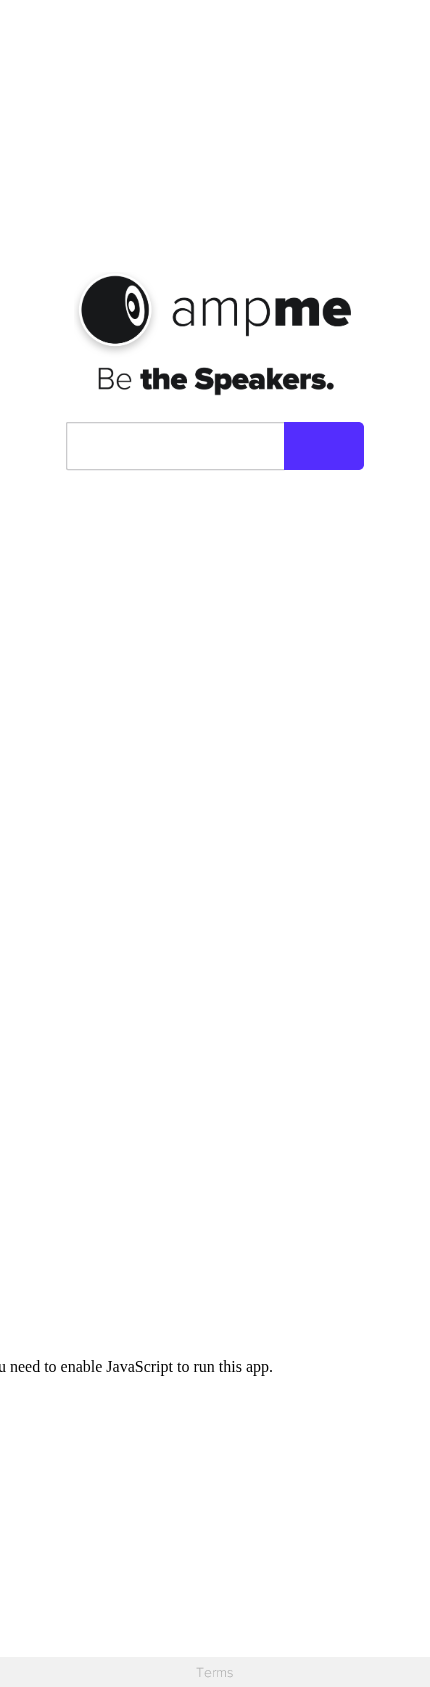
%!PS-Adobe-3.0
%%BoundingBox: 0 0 430 1687
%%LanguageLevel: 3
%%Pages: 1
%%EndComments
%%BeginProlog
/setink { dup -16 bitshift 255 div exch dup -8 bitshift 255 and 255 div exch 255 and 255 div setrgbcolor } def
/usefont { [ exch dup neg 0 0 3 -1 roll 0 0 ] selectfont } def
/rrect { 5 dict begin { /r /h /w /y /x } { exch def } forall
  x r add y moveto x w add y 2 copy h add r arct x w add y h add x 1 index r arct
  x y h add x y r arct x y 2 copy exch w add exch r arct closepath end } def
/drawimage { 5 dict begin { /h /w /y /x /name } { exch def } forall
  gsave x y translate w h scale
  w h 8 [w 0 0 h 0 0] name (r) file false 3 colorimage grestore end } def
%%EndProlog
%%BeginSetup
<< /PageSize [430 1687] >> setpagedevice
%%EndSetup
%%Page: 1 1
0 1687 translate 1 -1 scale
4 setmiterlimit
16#FFFFFF setink
0 0 430 1687 rectfill
(img1.raw) 74 272 277 124 drawimage
16#CACACC setink
66.5 422.5 219 47 1.5 rrect stroke
16#542DFE setink
284 422 moveto 358 422 lineto 361.5 422 364 424.5 364 428 curveto 364 464 lineto 364 467.5 361.5 470 358 470 curveto 284 470 lineto closepath fill
(img2.raw) 0 1360 272 16 drawimage
16#F1F1F1 setink
0 1657 430 30 rectfill
/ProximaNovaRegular-Regular 14 usefont
16#AAAAAA setink
196 1677 moveto (Terms) show
showpage
%%EOF
